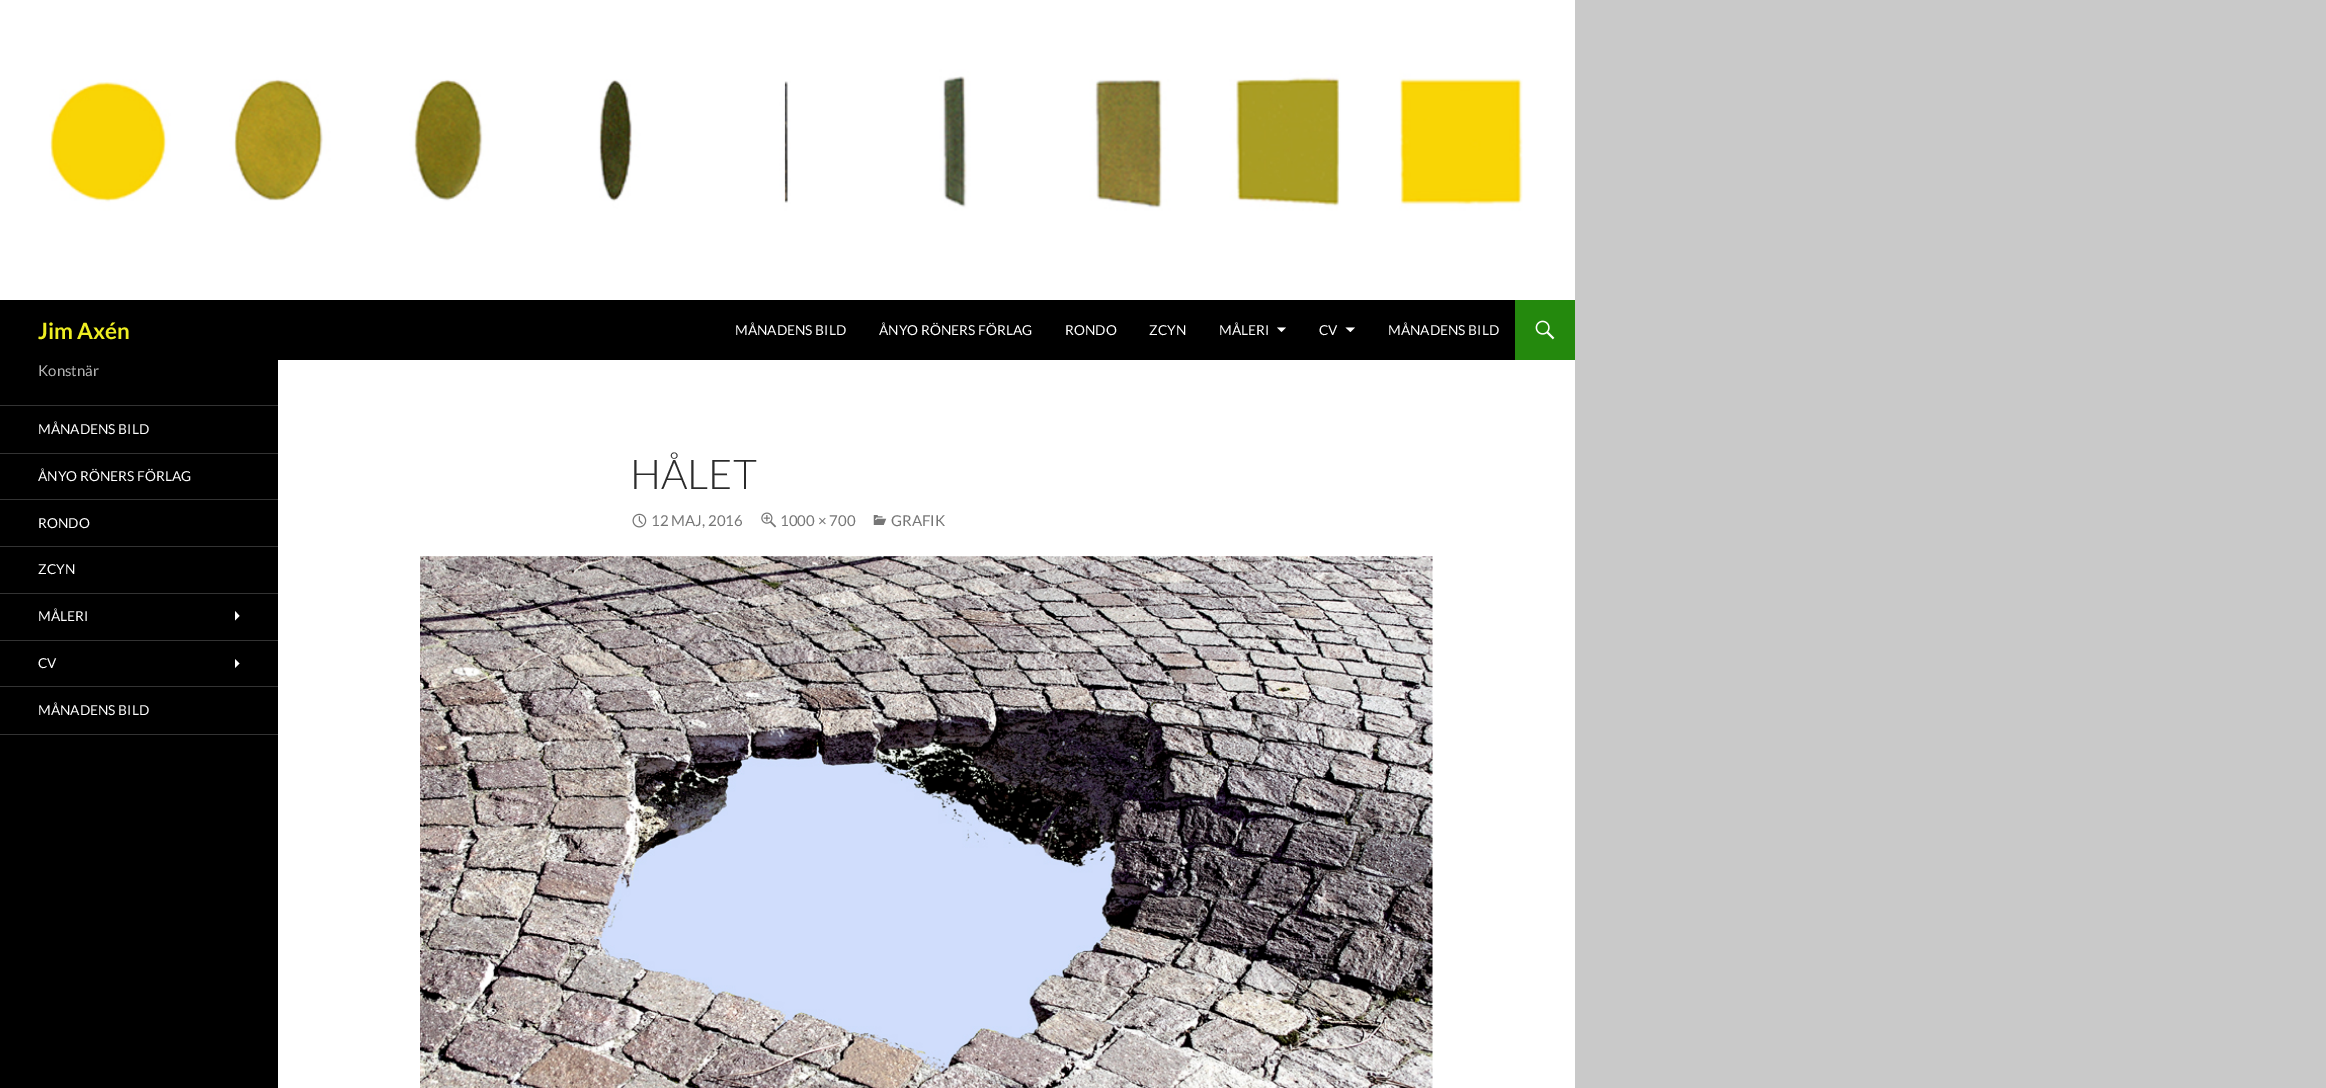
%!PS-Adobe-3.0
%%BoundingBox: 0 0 2326 1088
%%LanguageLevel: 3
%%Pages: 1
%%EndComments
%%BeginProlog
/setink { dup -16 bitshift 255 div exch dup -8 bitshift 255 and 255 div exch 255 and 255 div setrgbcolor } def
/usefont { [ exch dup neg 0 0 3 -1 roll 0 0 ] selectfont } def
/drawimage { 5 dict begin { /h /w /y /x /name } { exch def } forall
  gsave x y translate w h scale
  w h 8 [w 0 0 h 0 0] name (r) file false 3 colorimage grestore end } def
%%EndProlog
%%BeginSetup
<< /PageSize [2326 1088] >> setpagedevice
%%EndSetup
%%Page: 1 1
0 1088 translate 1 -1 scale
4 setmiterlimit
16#C9C9C9 setink
0 0 2326 1088 rectfill
16#FFFFFF setink
278 0 1297 1088 rectfill
(img1.raw) 0 0 1523 300 drawimage
16#000000 setink
0 300 1515 60 rectfill
/Lato-Bold 22.5 usefont
16#EEEE22 setink
38 339 moveto (Jim Axén) show
/Lato-Regular 13.75 usefont
16#FFFFFF setink
[
    [(MÅNADENS BILD) 735 335]
    [(ÅNYO RÖNERS FÖRLAG) 879 335]
    [(RONDO) 1065 335]
    [(ZCYN) 1149 335]
    [(MÅLERI) 1219 335]
] { aload pop moveto show } forall
1277 327.5 moveto 1281.5 332 lineto 1286 327.5 lineto closepath fill
1319 335 moveto (CV) show
1345.5 327.5 moveto 1350.5 332 lineto 1355 327.5 lineto closepath fill
1388 335 moveto (MÅNADENS BILD) show
16#24890D setink
1515 300 60 60 rectfill
(img2.raw) 1535 320 20 20 drawimage
16#000000 setink
0 360 278 728 rectfill
/Lato-Regular 15 usefont
16#B3B3B3 setink
38 376 moveto (Konstnär) show
16#333333 setink
0 734 278 1 rectfill
0 405 278 1 rectfill
/Lato-Regular 13.75 usefont
16#FFFFFF setink
38 434 moveto (MÅNADENS BILD) show
16#333333 setink
0 453 278 1 rectfill
16#FFFFFF setink
38 481 moveto (ÅNYO RÖNERS FÖRLAG) show
16#333333 setink
0 499 278 1 rectfill
16#FFFFFF setink
38 528 moveto (RONDO) show
16#333333 setink
0 546 278 1 rectfill
16#FFFFFF setink
38 574 moveto (ZCYN) show
16#333333 setink
0 593 278 1 rectfill
16#FFFFFF setink
38 621 moveto (MÅLERI) show
235 620.5 moveto 239.5 616 lineto 235 611 lineto closepath fill
16#333333 setink
0 640 278 1 rectfill
16#FFFFFF setink
38 668 moveto (CV) show
235 668 moveto 239.5 663.5 lineto 235 659 lineto closepath fill
16#333333 setink
0 686 278 1 rectfill
16#FFFFFF setink
38 715 moveto (MÅNADENS BILD) show
/Lato-Light 41 usefont
16#2B2B2B setink
630 489 moveto (HÅLET) show
(img3.raw) 632 513 15 15 drawimage
/Lato-Regular 15 usefont
16#767676 setink
651 526 moveto (12 MAJ, 2016) show
(img4.raw) 761 512 16 16 drawimage
780 526 moveto (1000 × 700) show
(img5.raw) 873 515 14 10 drawimage
891 526 moveto (GRAFIK) show
(img6.raw) 420 556 1013 532 drawimage
showpage
%%EOF
